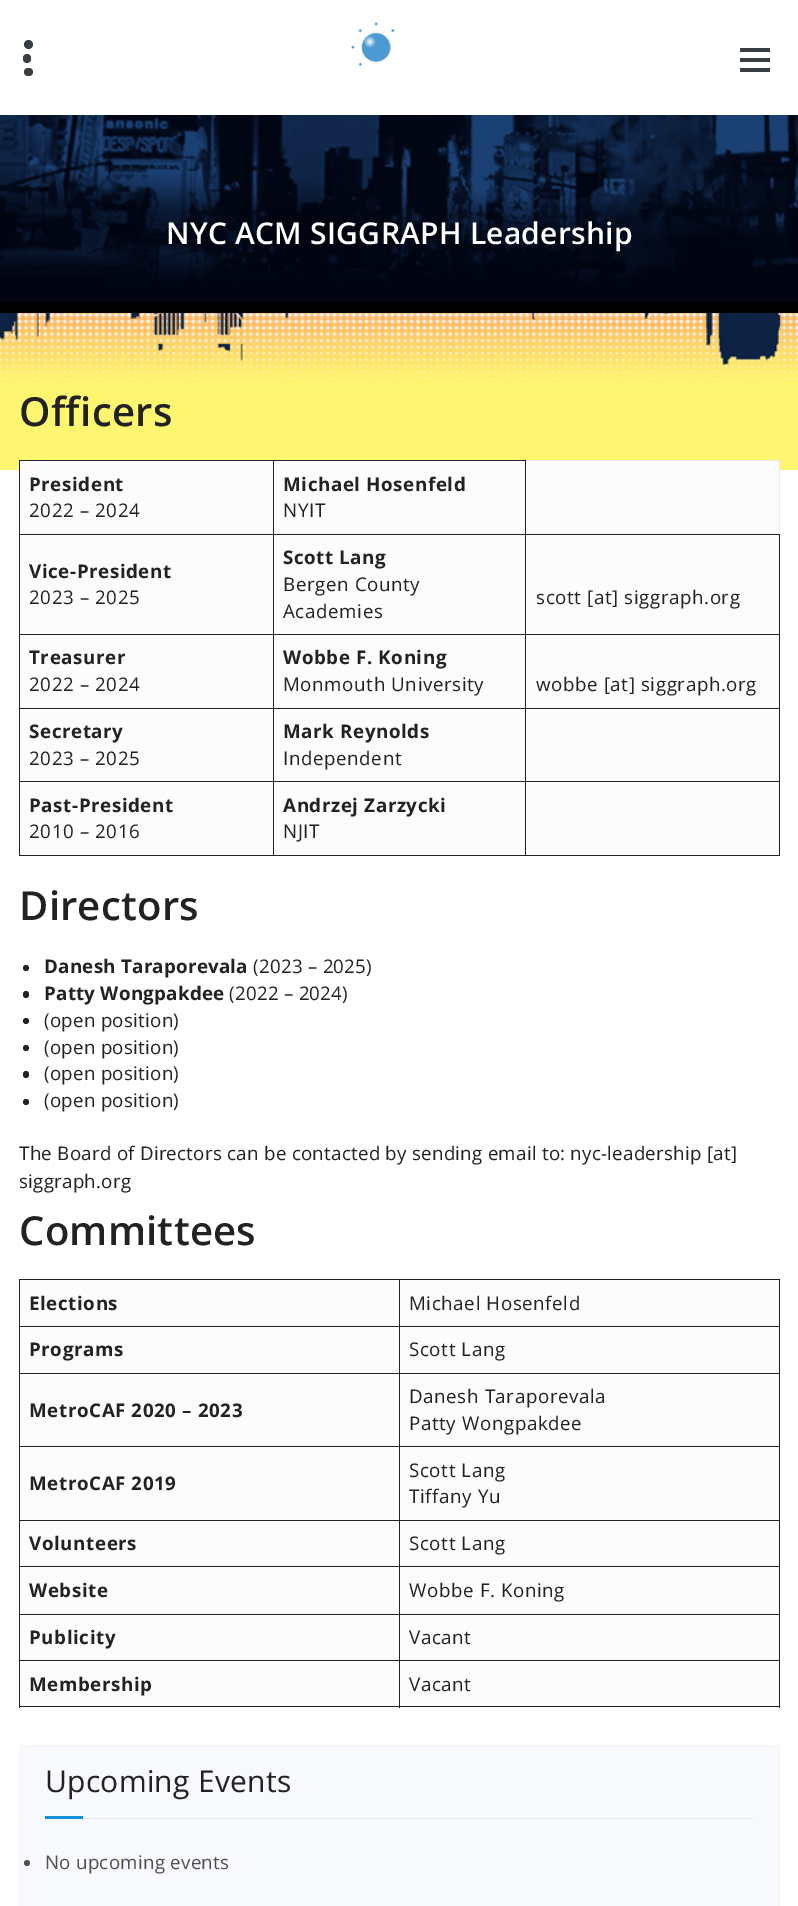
%!PS-Adobe-3.0
%%BoundingBox: 0 0 798 1906
%%LanguageLevel: 3
%%Pages: 1
%%EndComments
%%BeginProlog
/setink { dup -16 bitshift 255 div exch dup -8 bitshift 255 and 255 div exch 255 and 255 div setrgbcolor } def
/usefont { [ exch dup neg 0 0 3 -1 roll 0 0 ] selectfont } def
/disc { newpath 0 360 arc closepath } def
/rrect { 5 dict begin { /r /h /w /y /x } { exch def } forall
  x r add y moveto x w add y 2 copy h add r arct x w add y h add x 1 index r arct
  x y h add x y r arct x y 2 copy exch w add exch r arct closepath end } def
/drawimage { 5 dict begin { /h /w /y /x /name } { exch def } forall
  gsave x y translate w h scale
  w h 8 [w 0 0 h 0 0] name (r) file false 3 colorimage grestore end } def
%%EndProlog
%%BeginSetup
<< /PageSize [798 1906] >> setpagedevice
%%EndSetup
%%Page: 1 1
0 1906 translate 1 -1 scale
4 setmiterlimit
16#FFFFFF setink
0 0 798 1906 rectfill
(img1.raw) 0 313 798 157 drawimage
16#383E41 setink
23 54 8 9 4 rrect fill
28.5 44.5 4.5 disc fill
24 68 9 8 4 rrect fill
(img2.raw) 351 22 44 44 drawimage
[
    [740 48 30 4 16#383E41]
    [740 58 30 4 16#383E41]
    [740 68 30 4 16#383E41]
    [0 302 798 11 16#000000]
] { aload pop setink rectfill } forall
(img3.raw) 0 115 798 188 drawimage
/OpenSans-SemiBold 30 usefont
16#FFFFFF setink
166 244 moveto 0.25 0 (NYC ACM SIGGRAPH Leadership) ashow
/OpenSans-SemiBold 40 usefont
16#222222 setink
19 426 moveto 0.25 0 (Officers) ashow
[
    [20 461 759 394 16#FCFCFC]
    [526 460 254 1 16#E9E9E9]
    [779 460 1 74 16#E9E9E9]
    [273 460 253 1 16#222222]
    [525 534 255 1 16#222222]
    [525 634 255 1 16#222222]
    [525 708 255 1 16#222222]
    [525 781 255 1 16#222222]
    [779 781 1 75 16#222222]
    [525 855 255 1 16#222222]
    [525 781 1 75 16#222222]
    [273 781 253 1 16#222222]
    [525 708 1 75 16#222222]
    [273 708 253 1 16#222222]
    [525 634 1 75 16#222222]
    [273 634 253 1 16#222222]
    [525 534 1 101 16#222222]
    [273 534 253 1 16#222222]
    [273 855 253 1 16#222222]
    [273 781 1 75 16#222222]
    [19 781 255 1 16#222222]
    [273 708 1 75 16#222222]
    [19 708 255 1 16#222222]
    [273 634 1 75 16#222222]
    [19 634 255 1 16#222222]
    [273 534 1 101 16#222222]
    [19 534 255 1 16#222222]
    [273 460 1 75 16#222222]
    [19 460 255 1 16#222222]
    [19 855 255 1 16#222222]
    [19 781 1 75 16#222222]
    [19 708 1 75 16#222222]
    [19 634 1 75 16#222222]
    [19 534 1 101 16#222222]
    [19 460 1 75 16#222222]
] { aload pop setink rectfill } forall
/OpenSans-Bold 18.75 usefont
29 491 moveto 0.6 0 (President) ashow
/OpenSans-Regular 18.75 usefont
29 517 moveto 0.6 0 (2022 – 2024) ashow
525 460 1 75 rectfill
/OpenSans-Bold 18.75 usefont
283 491 moveto 0.6 0 (Michael Hosenfeld) ashow
/OpenSans-Regular 18.75 usefont
283 517 moveto 0.6 0 (NYIT) ashow
/OpenSans-Bold 18.75 usefont
29 578 moveto 0.6 0 (Vice-President) ashow
/OpenSans-Regular 18.75 usefont
29 604 moveto 0.6 0 (2023 – 2025) ashow
/OpenSans-Bold 18.75 usefont
283 564 moveto 0.6 0 (Scott Lang) ashow
/OpenSans-Regular 18.75 usefont
283 591 moveto 0.6 0 (Bergen County) ashow
283 618 moveto 0.6 0 (Academies) ashow
[
    [779 708 1 75 16#222222]
    [779 634 1 75 16#222222]
    [779 534 1 101 16#222222]
] { aload pop setink rectfill } forall
536 604 moveto 0.6 0 (scott [at] siggraph.org) ashow
/OpenSans-Bold 18.75 usefont
29 664 moveto 0.6 0 (Treasurer) ashow
/OpenSans-Regular 18.75 usefont
29 691 moveto 0.6 0 (2022 – 2024) ashow
/OpenSans-Bold 18.75 usefont
283 664 moveto 0.6 0 (Wobbe F. Koning) ashow
/OpenSans-Regular 18.75 usefont
283 691 moveto 0.6 0 (Monmouth University) ashow
536 691 moveto 0.6 0 (wobbe [at] siggraph.org) ashow
/OpenSans-Bold 18.75 usefont
29 738 moveto 0.6 0 (Secretary) ashow
/OpenSans-Regular 18.75 usefont
29 765 moveto 0.6 0 (2023 – 2025) ashow
/OpenSans-Bold 18.75 usefont
283 738 moveto 0.6 0 (Mark Reynolds) ashow
/OpenSans-Regular 18.75 usefont
283 765 moveto 0.6 0 (Independent) ashow
/OpenSans-Bold 18.75 usefont
29 812 moveto 0.6 0 (Past-President) ashow
/OpenSans-Regular 18.75 usefont
29 838 moveto 0.6 0 (2010 – 2016) ashow
/OpenSans-Bold 18.75 usefont
283 812 moveto 0.6 0 (Andrzej Zarzycki) ashow
/OpenSans-Regular 18.75 usefont
283 838 moveto 0.6 0 (NJIT) ashow
/OpenSans-SemiBold 40 usefont
19 920 moveto 0.25 0 (Directors) ashow
26 968 3 disc fill
/OpenSans-Bold 18.75 usefont
44 973 moveto 0.25 0 (Danesh Taraporevala) ashow
/OpenSans-Regular 18.75 usefont
253 973 moveto 0.25 0 (\(2023 – 2025\)) ashow
23 991 6 7 3 rrect fill
/OpenSans-Bold 18.75 usefont
44 1000 moveto 0.25 0 (Patty Wongpakdee) ashow
/OpenSans-Regular 18.75 usefont
229 1000 moveto 0.25 0 (\(2022 – 2024\)) ashow
26 1021 3 disc fill
44 1027 moveto 0.25 0 (\(open position\)) ashow
26 1048 3 disc fill
44 1054 moveto 0.25 0 (\(open position\)) ashow
23 1071 6 7 3 rrect fill
44 1080 moveto 0.25 0 (\(open position\)) ashow
26 1102 3 disc fill
44 1107 moveto 0.25 0 (\(open position\)) ashow
19 1160 moveto 0.25 0 (The Board of Directors can be contacted by sending email to: nyc-leadership [at]) ashow
19 1188 moveto 0.25 0 (siggraph.org) ashow
/OpenSans-SemiBold 40 usefont
19 1245 moveto 0.25 0 (Committees) ashow
[
    [20 1280 759 428 16#FCFCFC]
    [399 1279 381 1 16#222222]
    [399 1326 381 1 16#222222]
    [399 1373 381 1 16#222222]
    [399 1446 381 1 16#222222]
    [399 1520 381 1 16#222222]
    [399 1566 381 1 16#222222]
    [399 1614 381 1 16#222222]
    [399 1660 381 1 16#222222]
    [779 1660 1 48 16#222222]
    [399 1706 381 1 16#222222]
    [399 1660 1 48 16#222222]
    [19 1660 381 1 16#222222]
    [399 1614 1 47 16#222222]
    [19 1614 381 1 16#222222]
    [399 1566 1 49 16#222222]
    [19 1566 381 1 16#222222]
    [399 1520 1 48 16#222222]
    [19 1520 381 1 16#222222]
    [399 1446 1 75 16#222222]
    [19 1446 381 1 16#222222]
    [399 1373 1 75 16#222222]
    [19 1373 381 1 16#222222]
    [399 1326 1 48 16#222222]
    [19 1326 381 1 16#222222]
    [399 1279 1 49 16#222222]
    [19 1279 381 1 16#222222]
    [19 1706 381 1 16#222222]
    [19 1660 1 48 16#222222]
    [19 1614 1 47 16#222222]
    [19 1566 1 49 16#222222]
    [19 1520 1 48 16#222222]
    [19 1446 1 75 16#222222]
    [19 1373 1 75 16#222222]
    [19 1326 1 48 16#222222]
    [19 1279 1 49 16#222222]
] { aload pop setink rectfill } forall
/OpenSans-Bold 18.75 usefont
29 1310 moveto 0.6 0 (Elections) ashow
[
    [779 1614 1 47 16#222222]
    [779 1566 1 49 16#222222]
    [779 1520 1 48 16#222222]
    [779 1446 1 75 16#222222]
    [779 1373 1 75 16#222222]
    [779 1326 1 48 16#222222]
    [779 1279 1 49 16#222222]
] { aload pop setink rectfill } forall
/OpenSans-Regular 18.75 usefont
409 1310 moveto 0.6 0 (Michael Hosenfeld) ashow
/OpenSans-Bold 18.75 usefont
29 1356 moveto 0.6 0 (Programs) ashow
/OpenSans-Regular 18.75 usefont
409 1356 moveto 0.6 0 (Scott Lang) ashow
/OpenSans-Bold 18.75 usefont
29 1417 moveto 0.6 0 (MetroCAF 2020 – 2023) ashow
/OpenSans-Regular 18.75 usefont
409 1403 moveto 0.6 0 (Danesh Taraporevala) ashow
409 1430 moveto 0.6 0 (Patty Wongpakdee) ashow
/OpenSans-Bold 18.75 usefont
29 1490 moveto 0.6 0 (MetroCAF 2019) ashow
/OpenSans-Regular 18.75 usefont
409 1477 moveto 0.6 0 (Scott Lang) ashow
409 1503 moveto 0.6 0 (Tiffany Yu) ashow
/OpenSans-Bold 18.75 usefont
29 1550 moveto 0.6 0 (Volunteers) ashow
/OpenSans-Regular 18.75 usefont
409 1550 moveto 0.6 0 (Scott Lang) ashow
/OpenSans-Bold 18.75 usefont
29 1597 moveto 0.6 0 (Website) ashow
/OpenSans-Regular 18.75 usefont
409 1597 moveto 0.6 0 (Wobbe F. Koning) ashow
/OpenSans-Bold 18.75 usefont
29 1644 moveto 0.6 0 (Publicity) ashow
/OpenSans-Regular 18.75 usefont
409 1644 moveto 0.6 0 (Vacant) ashow
/OpenSans-Bold 18.75 usefont
29 1691 moveto 0.6 0 (Membership) ashow
/OpenSans-Regular 18.75 usefont
409 1691 moveto 0.6 0 (Vacant) ashow
16#F7F9FC setink
19.5 1745.5 moveto 779.5 1745.5 lineto 779.5 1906.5 lineto 19.5 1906.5 lineto closepath gsave fill grestore
16#F6F6F6 setink
stroke
16#E7EAF1 setink
83 1818 671 1 rectfill
/OpenSans-Regular 30 usefont
16#222222 setink
45 1792 moveto 0.25 0 (Upcoming Events) ashow
16#1490D7 setink
45 1816 38 3 rectfill
16#505050 setink
27 1863 3 disc fill
/OpenSans-Regular 18.75 usefont
45 1869 moveto 0.25 0 (No upcoming events) ashow
showpage
%%EOF
